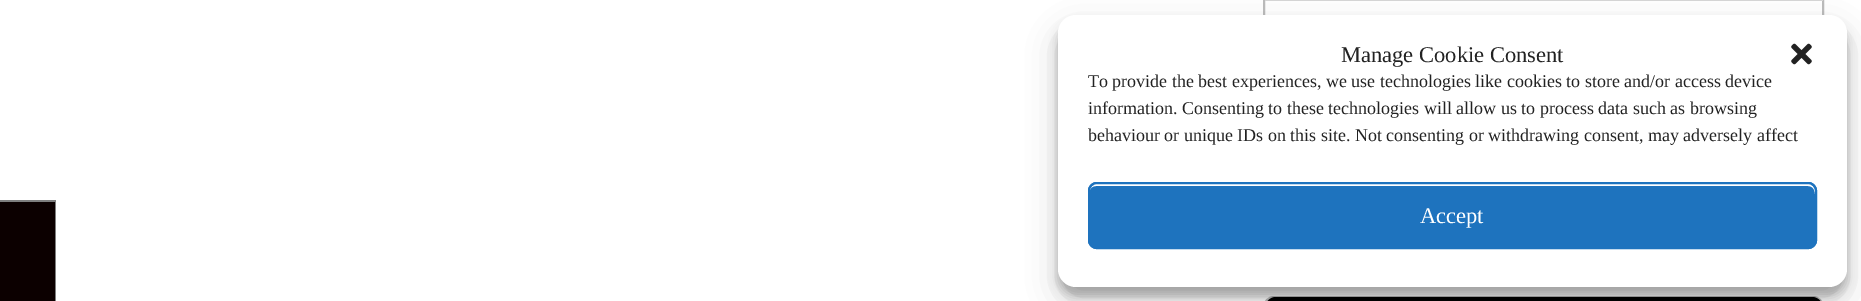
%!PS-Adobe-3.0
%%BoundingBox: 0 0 1861 301
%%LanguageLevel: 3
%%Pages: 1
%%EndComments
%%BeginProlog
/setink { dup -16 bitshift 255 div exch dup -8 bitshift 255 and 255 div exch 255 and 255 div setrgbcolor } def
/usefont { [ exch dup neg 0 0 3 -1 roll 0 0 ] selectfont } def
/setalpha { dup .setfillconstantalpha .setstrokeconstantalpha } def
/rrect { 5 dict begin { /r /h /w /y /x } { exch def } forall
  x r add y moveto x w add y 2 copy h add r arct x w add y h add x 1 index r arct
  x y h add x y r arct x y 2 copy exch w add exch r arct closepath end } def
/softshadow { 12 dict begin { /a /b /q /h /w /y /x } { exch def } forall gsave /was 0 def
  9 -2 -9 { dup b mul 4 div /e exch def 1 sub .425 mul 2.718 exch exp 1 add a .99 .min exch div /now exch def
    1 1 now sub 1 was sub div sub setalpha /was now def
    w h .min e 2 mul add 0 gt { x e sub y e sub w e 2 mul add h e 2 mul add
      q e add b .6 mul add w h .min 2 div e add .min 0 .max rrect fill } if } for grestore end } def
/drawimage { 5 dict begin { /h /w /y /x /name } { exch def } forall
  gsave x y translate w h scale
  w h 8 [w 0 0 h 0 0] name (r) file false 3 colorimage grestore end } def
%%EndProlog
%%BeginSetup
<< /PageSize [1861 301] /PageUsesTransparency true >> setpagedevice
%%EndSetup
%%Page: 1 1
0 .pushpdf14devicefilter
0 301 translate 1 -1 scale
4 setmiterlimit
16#FFFFFF setink
0 0 1861 301 rectfill
16#BBBBBB setink
2 setlinewidth
1264 -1 559 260 rectstroke
16#D6D6D6 setink
1265 0 558 1 rectfill
16#BBBBBB setink
1264 297 559 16 10 rrect stroke
16#000000 setink
1276 297 moveto 1812 297 lineto 1818 297 1823 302 1823 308 curveto 1823 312 lineto 1265 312 lineto 1265 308 lineto 1265 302 1270 297 1276 297 curveto closepath fill
1058 24 789 272 18 4.5 0.23 softshadow
1058 30 789 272 18 15 0.19 softshadow
16#FFFFFF setink
1058 15 789 272 18 rrect fill
/LiberationSerif-Regular 22.5 usefont
16#222222 setink
1341 62 moveto (Manage Cookie Consent) show
(img1.raw) 1791 43 21 22 drawimage
gsave
1088 68 729 84 rectclip
/LiberationSerif-Regular 18 usefont
1088 87 moveto (To provide the best experiences, we use technologies like cookies to store and/or access device) show
grestore
/LiberationSerif-Regular 18 usefont
1088 114 moveto (information. Consenting to these technologies will allow us to process data such as browsing) show
1088 141 moveto (behaviour or unique IDs on this site. Not consenting or withdrawing consent, may adversely affect) show
16#1E73BE setink
1088 182 729 67 9 rrect fill
16#FFFFFF setink
1096 186 moveto 1808 186 lineto 1812 186 1815 189 1815 194 curveto 1815 191 lineto 1815 187 1811 183 1807 183 curveto 1097 183 lineto 1093 183 1089 187 1089 191 curveto 1089 194 lineto 1089 189 1092 186 1096 186 curveto closepath fill
16#1E73BE setink
1089 183 727 65 8 rrect stroke
/LiberationSerif-Regular 22.5 usefont
16#FFFFFF setink
1420 223 moveto (Accept) show
[
    [0 202 55 99 16#0C0000]
    [0 200 56 2 16#7F7F7F]
    [55 200 1 101 16#7F7F7F]
] { aload pop setink rectfill } forall
.poppdf14devicefilter showpage
%%EOF
